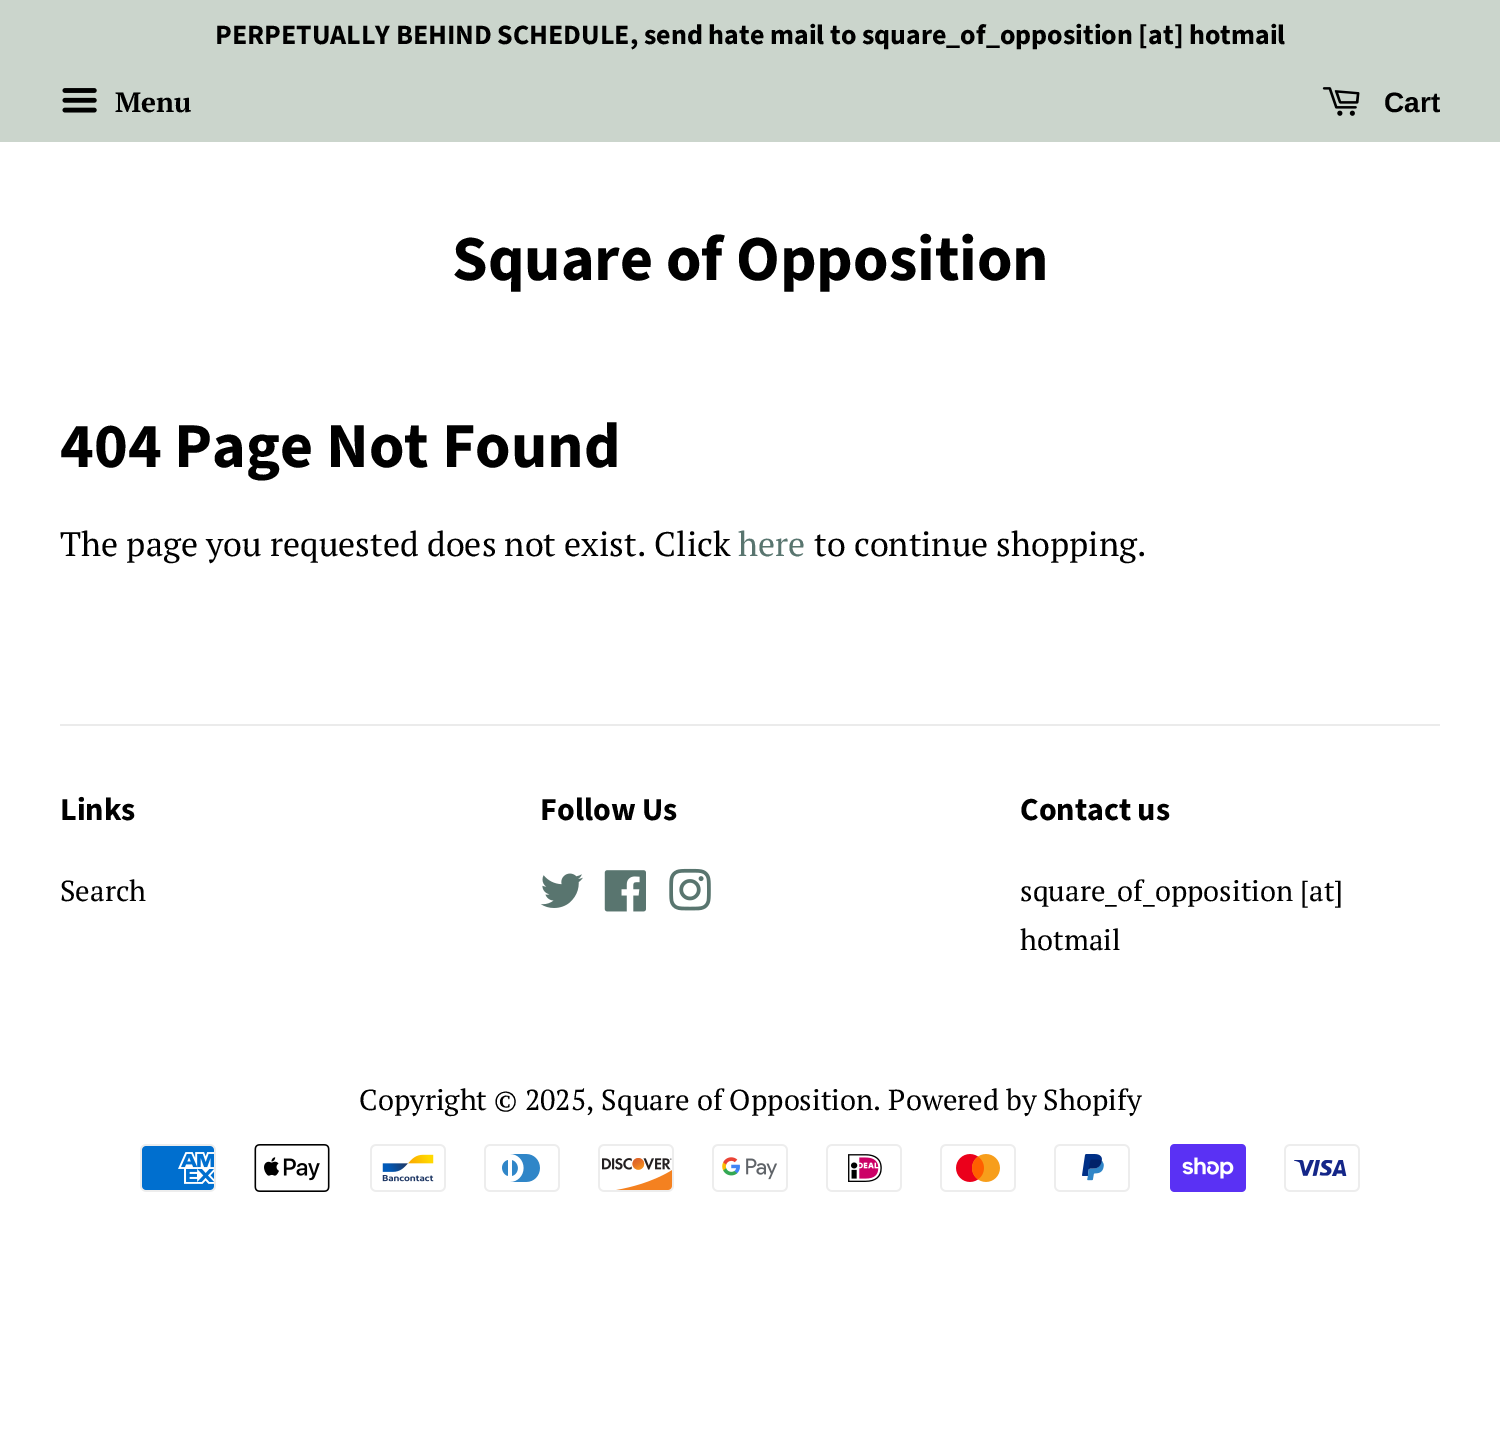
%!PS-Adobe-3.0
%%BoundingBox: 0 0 1500 1449
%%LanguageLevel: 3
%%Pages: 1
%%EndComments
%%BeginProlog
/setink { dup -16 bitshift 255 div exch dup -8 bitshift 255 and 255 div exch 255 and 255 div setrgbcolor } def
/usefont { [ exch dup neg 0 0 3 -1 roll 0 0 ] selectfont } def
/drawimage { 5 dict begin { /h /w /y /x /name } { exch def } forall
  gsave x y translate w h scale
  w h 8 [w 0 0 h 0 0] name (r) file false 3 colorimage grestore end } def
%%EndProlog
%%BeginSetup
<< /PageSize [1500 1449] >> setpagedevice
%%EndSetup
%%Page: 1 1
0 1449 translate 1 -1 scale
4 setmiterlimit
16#FFFFFF setink
0 0 1500 1449 rectfill
16#CBD5CC setink
0 0 1500 142 rectfill
/SourceSansPro-Bold 28 usefont
16#000000 setink
215 44 moveto (PERPETUALLY BEHIND SCHEDULE, send hate mail to square_of_opposition [at] hotmail) show
(img1.raw) 62 88 35 25 drawimage
/PTSerif-Bold 28 usefont
115 112 moveto (Menu) show
(img2.raw) 1322 87 38 29 drawimage
/LiberationSans-Bold 28 usefont
1384 112 moveto (Cart) show
/SourceSansPro-Bold 64 usefont
452 280 moveto (Square of Opposition) show
60 467 moveto (404 Page Not Found) show
/PTSerif-Regular 34 usefont
60 556 moveto (The page you requested does not exist. Click) show
16#59756F setink
738 556 moveto (here) show
16#000000 setink
814 556 moveto (to continue shopping.) show
16#EBEBEB setink
60 724 1380 2 rectfill
/SourceSansPro-Bold 32 usefont
16#000000 setink
60 820 moveto (Links) show
/PTSerif-Regular 28.9 usefont
60 901 moveto (Search) show
/SourceSansPro-Bold 32 usefont
540 820 moveto (Follow Us) show
(img3.raw) 540 873 43 35 drawimage
(img4.raw) 604 870 42 42 drawimage
(img5.raw) 669 868 42 43 drawimage
1020 820 moveto (Contact us) show
/PTSerif-Regular 28.9 usefont
[
    [(square_of_opposition [at]) 1020 901]
    [(hotmail) 1020 950]
    [(Copyright © 2025, Square of Opposition. Powered by Shopify) 359 1110]
] { aload pop moveto show } forall
(img6.raw) 140 1144 76 48 drawimage
(img7.raw) 254 1144 76 48 drawimage
(img8.raw) 370 1144 76 48 drawimage
(img9.raw) 484 1144 76 48 drawimage
(img10.raw) 598 1144 76 48 drawimage
(img11.raw) 712 1144 76 48 drawimage
(img12.raw) 826 1144 76 48 drawimage
(img13.raw) 940 1144 76 48 drawimage
(img14.raw) 1054 1144 76 48 drawimage
(img15.raw) 1170 1144 76 48 drawimage
(img16.raw) 1284 1144 76 48 drawimage
showpage
%%EOF
